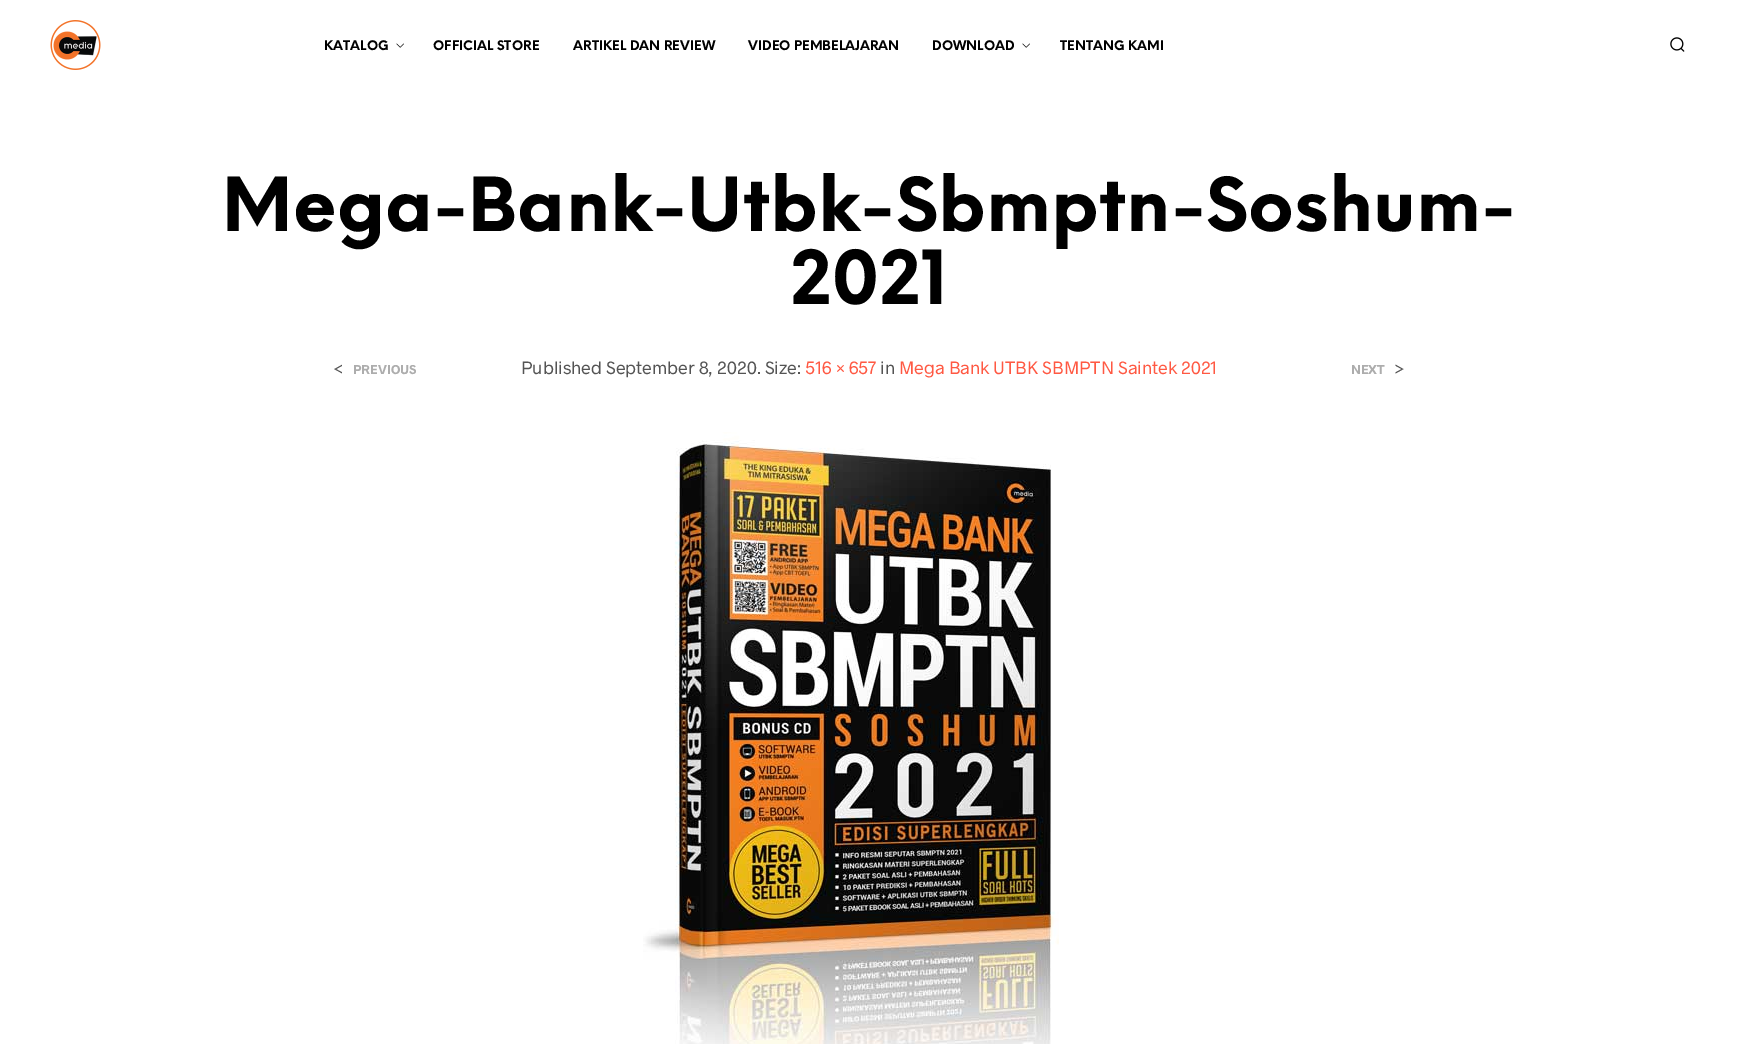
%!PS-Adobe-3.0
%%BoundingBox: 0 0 1738 1044
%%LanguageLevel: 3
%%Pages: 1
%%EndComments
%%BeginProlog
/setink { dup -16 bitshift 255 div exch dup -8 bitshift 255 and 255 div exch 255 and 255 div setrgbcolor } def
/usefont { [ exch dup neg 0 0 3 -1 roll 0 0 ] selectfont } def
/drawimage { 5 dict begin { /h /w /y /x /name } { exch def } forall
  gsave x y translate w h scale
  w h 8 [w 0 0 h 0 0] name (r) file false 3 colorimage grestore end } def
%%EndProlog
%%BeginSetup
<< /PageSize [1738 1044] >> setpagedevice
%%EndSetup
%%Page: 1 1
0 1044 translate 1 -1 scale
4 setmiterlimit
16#FFFFFF setink
0 0 1738 1044 rectfill
(img1.raw) 50 20 51 50 drawimage
/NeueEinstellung-Bold 13 usefont
16#000000 setink
324 50 moveto (KATALOG) show
(img2.raw) 396 43 8 5 drawimage
[
    [(OFFICIAL STORE) 433 50]
    [(ARTIKEL DAN REVIEW) 573 50]
    [(VIDEO PEMBELAJARAN) 748 50]
    [(DOWNLOAD) 932 50]
] { aload pop moveto show } forall
(img2.raw) 1022 43 8 5 drawimage
1060 50 moveto (TENTANG KAMI) show
(img3.raw) 1670 37 15 15 drawimage
/NeueEinstellung-Bold 72.6 usefont
222 231 moveto (Mega-Bank-Utbk-Sbmptn-Soshum-) show
790 304 moveto (2021) show
/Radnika-Regular 18 usefont
16#545454 setink
521 374 moveto (Published September 8, 2020. Size:) show
16#FF5943 setink
805 374 moveto (516 × 657) show
16#545454 setink
880 374 moveto (in) show
16#FF5943 setink
899 374 moveto (Mega Bank UTBK SBMPTN Saintek 2021) show
16#545454 setink
333 375 moveto (<) show
/Radnika-Bold 13 usefont
16#ADADAD setink
353 374 moveto (PREVIOUS) show
1351 374 moveto (NEXT) show
/Radnika-Regular 18 usefont
16#545454 setink
1394 375 moveto (>) show
(img4.raw) 643 432 416 612 drawimage
showpage
%%EOF
